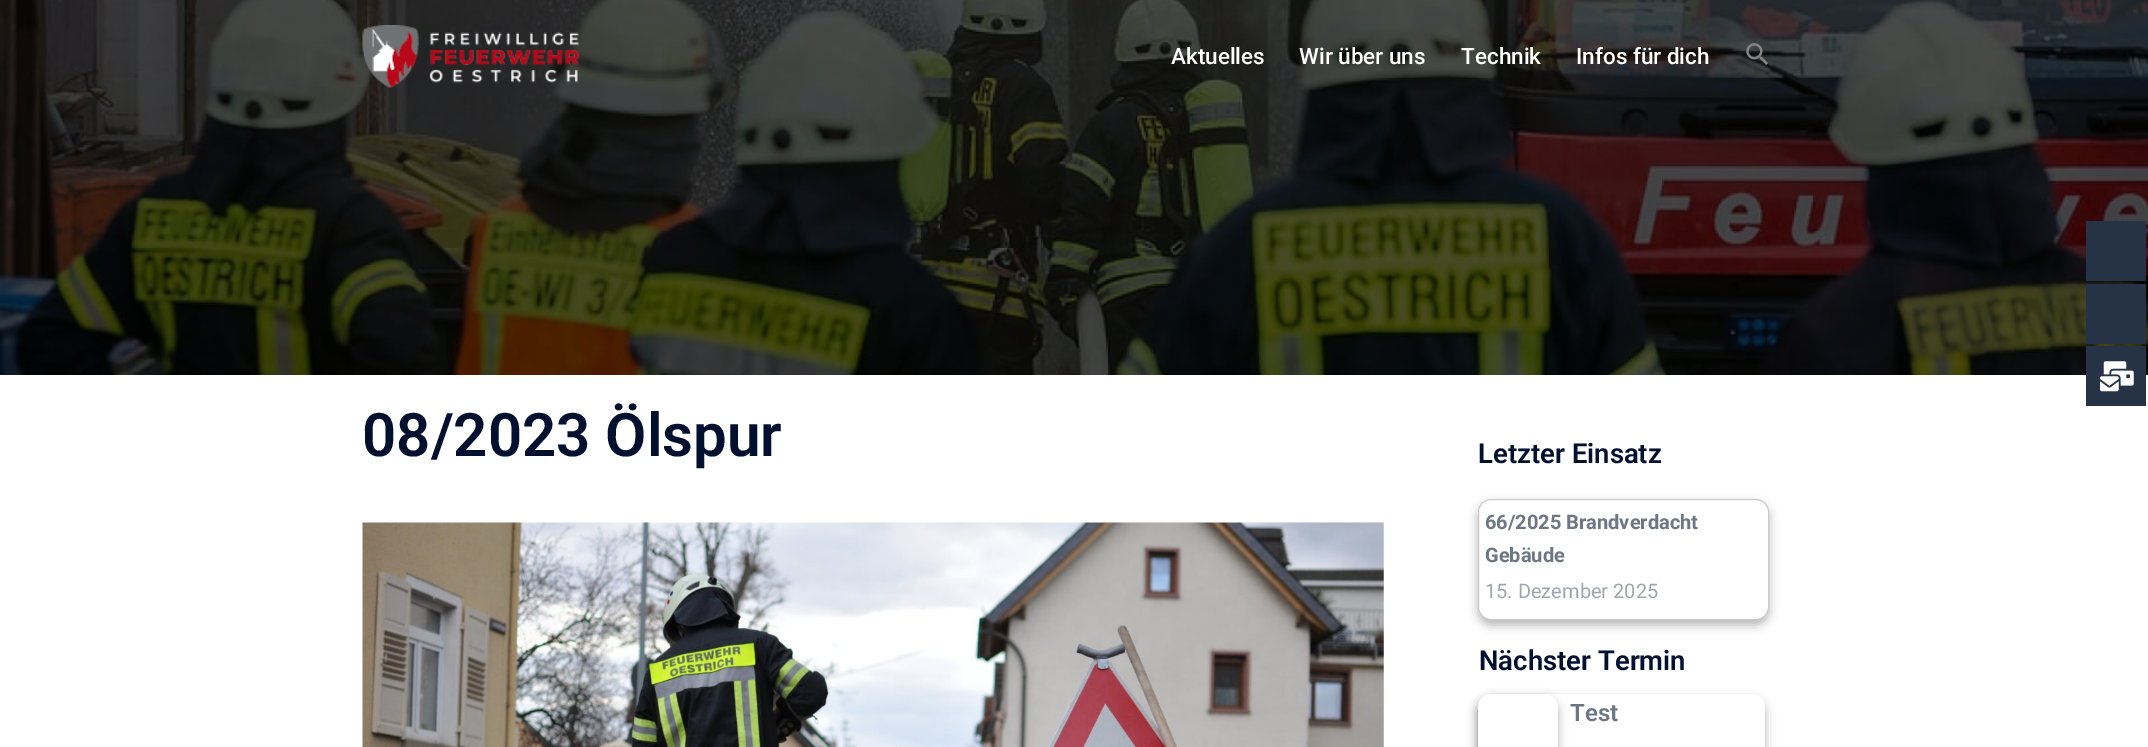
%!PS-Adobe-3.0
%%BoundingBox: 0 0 2148 747
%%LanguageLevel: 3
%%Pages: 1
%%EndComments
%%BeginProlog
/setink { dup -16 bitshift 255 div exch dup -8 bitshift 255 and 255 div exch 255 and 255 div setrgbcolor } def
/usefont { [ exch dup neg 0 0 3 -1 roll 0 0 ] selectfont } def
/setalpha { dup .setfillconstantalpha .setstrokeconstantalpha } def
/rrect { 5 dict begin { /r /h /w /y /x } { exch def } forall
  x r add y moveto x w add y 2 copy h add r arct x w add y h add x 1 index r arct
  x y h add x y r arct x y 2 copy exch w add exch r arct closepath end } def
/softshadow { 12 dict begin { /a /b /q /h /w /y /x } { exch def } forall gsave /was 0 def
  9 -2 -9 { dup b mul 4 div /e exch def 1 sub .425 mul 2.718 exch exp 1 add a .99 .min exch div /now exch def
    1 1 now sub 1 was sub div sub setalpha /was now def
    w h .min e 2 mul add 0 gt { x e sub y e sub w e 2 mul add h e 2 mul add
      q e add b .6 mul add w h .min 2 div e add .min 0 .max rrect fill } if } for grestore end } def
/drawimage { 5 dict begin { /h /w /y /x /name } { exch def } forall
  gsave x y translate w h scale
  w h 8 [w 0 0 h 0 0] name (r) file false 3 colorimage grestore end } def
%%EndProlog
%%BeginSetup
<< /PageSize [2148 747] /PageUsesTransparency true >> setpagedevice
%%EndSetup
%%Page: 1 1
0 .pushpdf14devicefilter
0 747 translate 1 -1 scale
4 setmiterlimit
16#FFFFFF setink
0 0 2148 747 rectfill
(img1.raw) 0 0 2148 375 drawimage
(img2.raw) 362 25 217 63 drawimage
/Roboto-Medium 22.5 usefont
[
    [(Aktuelles) 1171 64]
    [(Wir über uns) 1299 64]
    [(Technik) 1461 64]
    [(Infos für dich) 1576 64]
] { aload pop moveto show } forall
(img3.raw) 1746 43 22 22 drawimage
/Roboto-SemiBold 60 usefont
16#00102E setink
362 456 moveto (08/2023 Ölspur) show
(img4.raw) 362 522 1022 225 drawimage
/Roboto-SemiBold 27.5 usefont
1478 463 moveto (Letzter Einsatz) show
16#000000 setink
1478 504 291 121 13 5 0.3 softshadow
16#FFFFFF setink
1478.5 499.5 290 120 12.5 rrect gsave fill grestore
16#CCCCCC setink
stroke
/Roboto-Bold 20 usefont
16#6D7685 setink
1485 529 moveto (66/2025 Brandverdacht) show
1485 562 moveto (Gebäude) show
/Roboto-Regular 20 usefont
16#A0A6B0 setink
1485 598 moveto (15. Dezember 2025) show
/Roboto-SemiBold 27.5 usefont
16#00102E setink
1479 670 moveto (Nächster Termin) show
16#000000 setink
1478 699 287 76 13 5 0.3 softshadow
16#FFFFFF setink
1478 694 287 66 13 rrect fill
16#000000 setink
1478 699 80 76 13 5 0.3 softshadow
16#FFFFFF setink
1478 694 80 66 13 rrect fill
/Roboto-SemiBold 24 usefont
16#6D7685 setink
1570 721 moveto (Test) show
[
    [2086 221 60 60 16#263246]
    [2086 284 60 60 16#263246]
    [2086 346 60 60 16#263246]
] { aload pop setink rectfill } forall
(img5.raw) 2100 361 34 31 drawimage
.poppdf14devicefilter showpage
%%EOF
